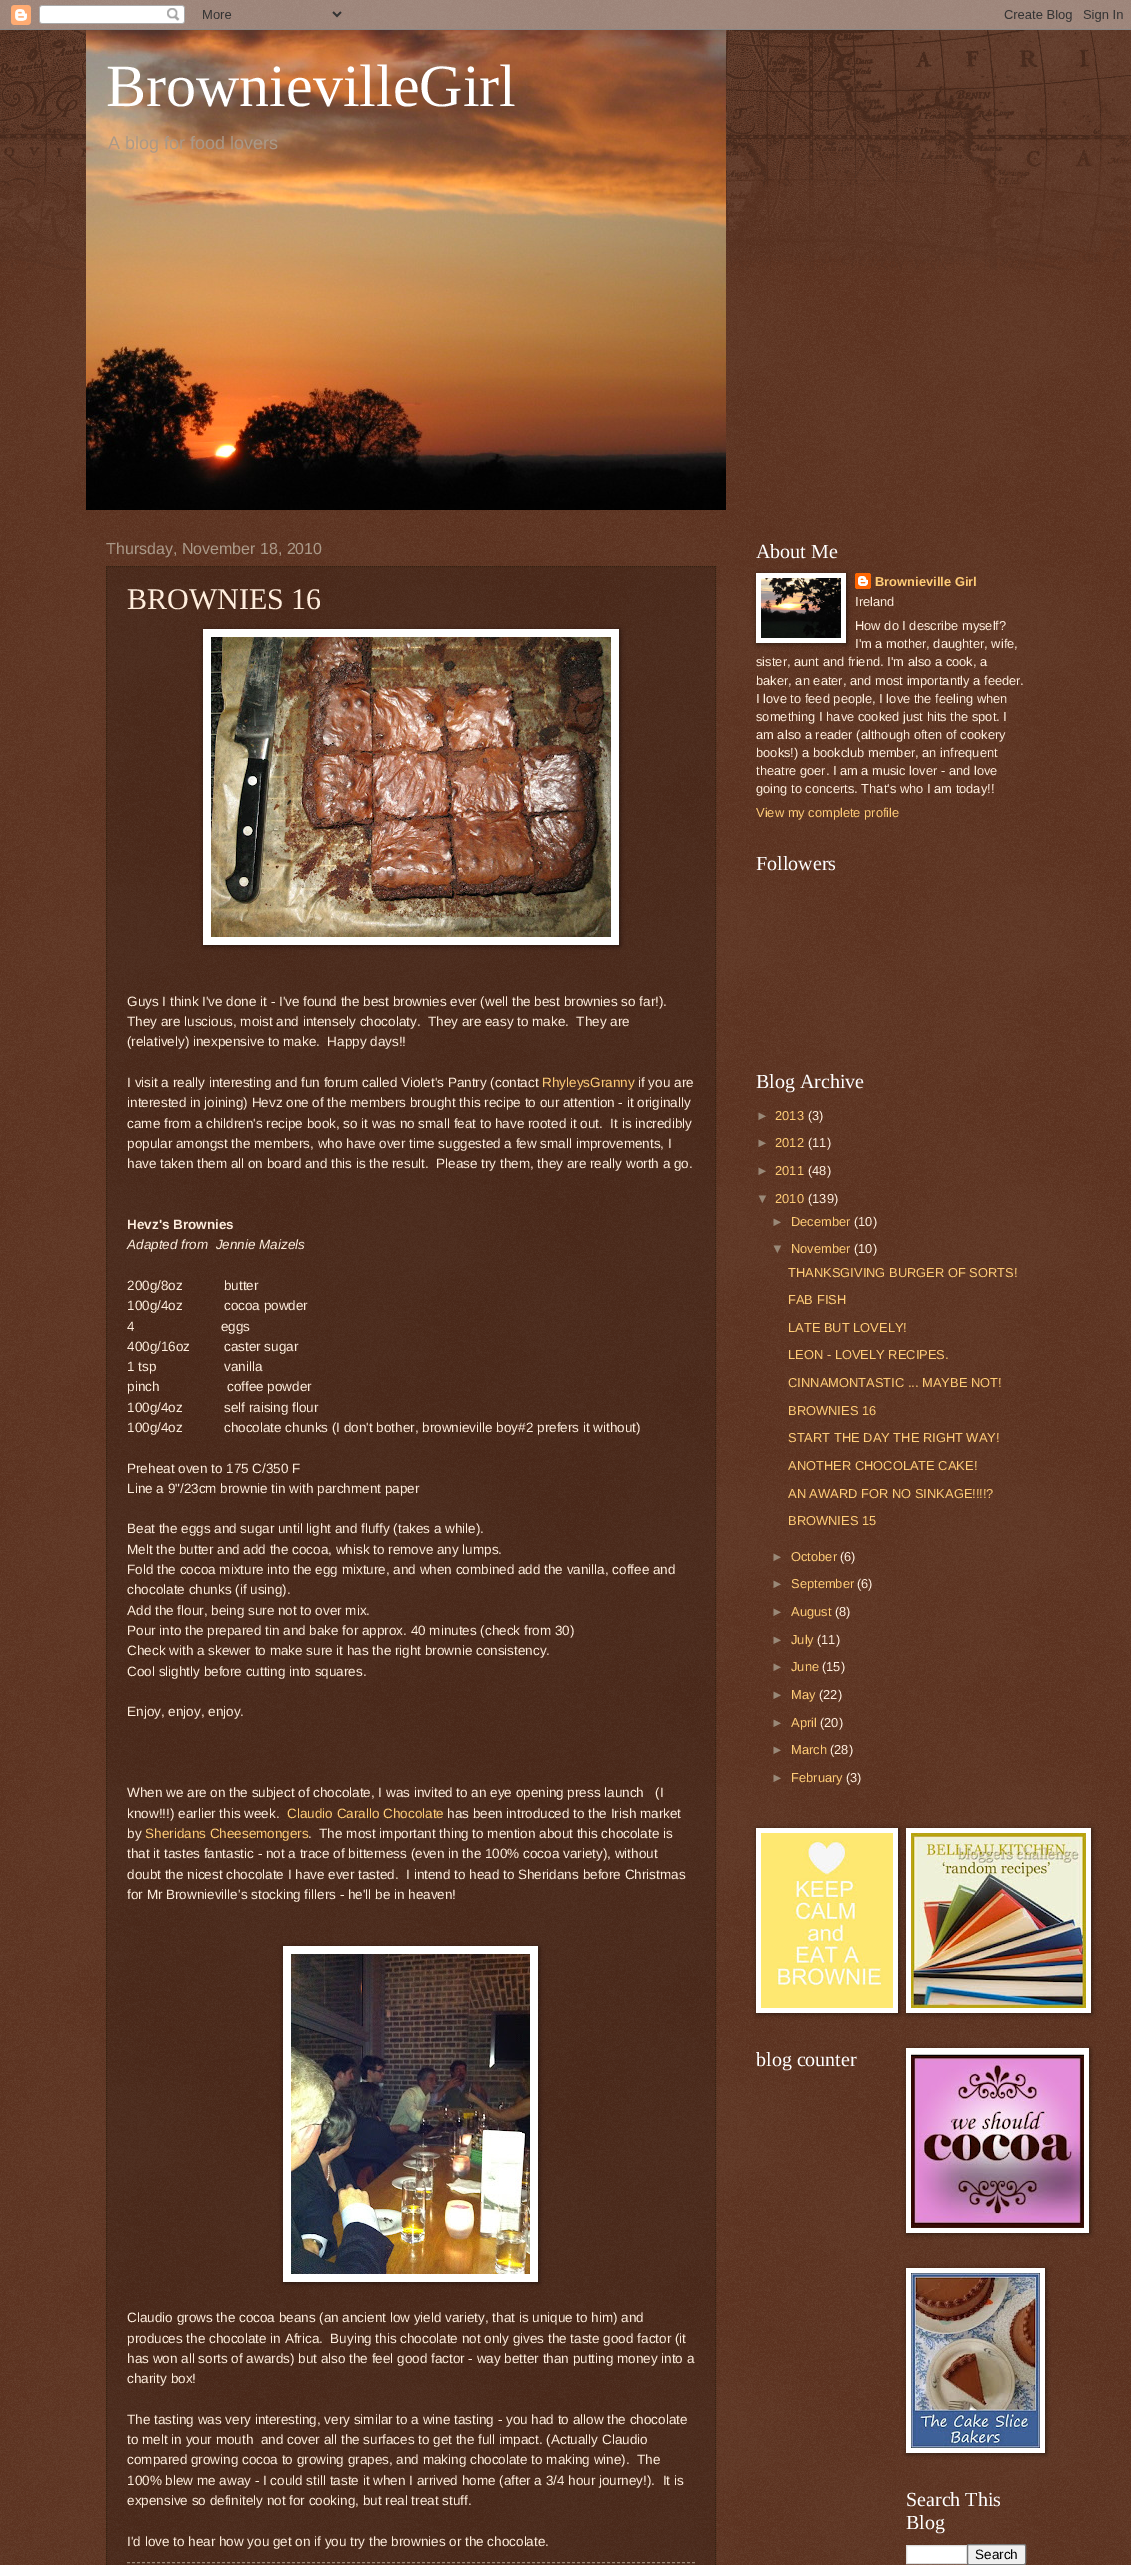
%!PS-Adobe-3.0
%%BoundingBox: 0 0 1131 2565
%%LanguageLevel: 3
%%Pages: 1
%%EndComments
%%BeginProlog
/setink { dup -16 bitshift 255 div exch dup -8 bitshift 255 and 255 div exch 255 and 255 div setrgbcolor } def
/usefont { [ exch dup neg 0 0 3 -1 roll 0 0 ] selectfont } def
/setalpha { dup .setfillconstantalpha .setstrokeconstantalpha } def
/rrect { 5 dict begin { /r /h /w /y /x } { exch def } forall
  x r add y moveto x w add y 2 copy h add r arct x w add y h add x 1 index r arct
  x y h add x y r arct x y 2 copy exch w add exch r arct closepath end } def
/softshadow { 12 dict begin { /a /b /q /h /w /y /x } { exch def } forall gsave /was 0 def
  9 -2 -9 { dup b mul 4 div /e exch def 1 sub .425 mul 2.718 exch exp 1 add a .99 .min exch div /now exch def
    1 1 now sub 1 was sub div sub setalpha /was now def
    w h .min e 2 mul add 0 gt { x e sub y e sub w e 2 mul add h e 2 mul add
      q e add b .6 mul add w h .min 2 div e add .min 0 .max rrect fill } if } for grestore end } def
/drawimage { 5 dict begin { /h /w /y /x /name } { exch def } forall
  gsave x y translate w h scale
  w h 8 [w 0 0 h 0 0] name (r) file false 3 colorimage grestore end } def
%%EndProlog
%%BeginSetup
<< /PageSize [1131 2565] /PageUsesTransparency true >> setpagedevice
%%EndSetup
%%Page: 1 1
0 .pushpdf14devicefilter
0 2565 translate 1 -1 scale
4 setmiterlimit
16#441500 setink
0 0 1131 2565 rectfill
(img1.raw) 0 0 1131 2565 drawimage
(img2.raw) 0 0 1131 30 drawimage
(img3.raw) 0 30 1131 240 drawimage
(img4.raw) 86 30 640 480 drawimage
/LiberationSerif-Regular 60 usefont
16#FFFFFF setink
106 106 moveto (BrownievilleGirl) show
/LiberationSans-Regular 18 usefont
16#AA9988 setink
108 149 moveto (A blog for food lovers) show
/LiberationSans-Regular 16 usefont
106 554 moveto (Thursday, November 18, 2010) show
0.2 setalpha
16#000000 setink
106 566 610 1999 rectfill
1 setalpha
16#332211 setink
[1 1] 0 setdash
106 566.5 moveto 716 566.5 lineto stroke
715.5 566 moveto 715.5 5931 lineto stroke
106.5 566 moveto 106.5 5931 lineto stroke
/LiberationSerif-Regular 30 usefont
16#FFEEDD setink
127 609 moveto (BROWNIES 16) show
16#000000 setink
204 630 416 316 0 2.5 0.5 softshadow
16#FFFFFF setink
203 629 416 316 rectfill
(img5.raw) 211 637 400 300 drawimage
/LiberationSans-Regular 13.5 usefont
16#FFEEDD setink
[
    [(Guys I think I've done it - I've found the best brownies ever \(well the best brownies so far!\).) 127 1006]
    [(They are luscious, moist and intensely chocolaty.  They are easy to make.  They are) 127 1026]
    [(\(relatively\) inexpensive to make.  Happy days!!) 127 1046]
    [(I visit a really interesting and fun forum called Violet's Pantry \(contact) 127 1087]
] { aload pop moveto show } forall
16#FFCC77 setink
542 1087 moveto (RhyleysGranny) show
16#FFEEDD setink
[
    [(if you are) 638 1087]
    [(interested in joining\) Hevz one of the members brought this recipe to our attention - it originally) 127 1107]
    [(came from a children's recipe book, so it was no small feat to have rooted it out.  It is incredibly) 127 1128]
    [(popular amongst the members, who have over time suggested a few small improvements, I) 127 1148]
    [(have taken them all on board and this is the result.  Please try them, they are really worth a go.) 127 1168]
] { aload pop moveto show } forall
/LiberationSans-Bold 13.5 usefont
127 1229 moveto (Hevz's Brownies) show
/LiberationSans-Italic 13.5 usefont
127 1249 moveto (Adapted from  Jennie Maizels) show
/LiberationSans-Regular 13.5 usefont
[
    [(200g/8oz           butter) 127 1290]
    [(100g/4oz           cocoa powder) 127 1310]
    [(4                       eggs) 127 1331]
    [(400g/16oz         caster sugar) 127 1351]
    [(1 tsp                  vanilla) 127 1371]
    [(pinch                  coffee powder) 127 1391]
    [(100g/4oz           self raising flour) 127 1412]
    [(100g/4oz           chocolate chunks \(I don't bother, brownieville boy#2 prefers it without\)) 127 1432]
    [(Preheat oven to 175 C/350 F) 127 1473]
    [(Line a 9"/23cm brownie tin with parchment paper) 127 1493]
    [(Beat the eggs and sugar until light and fluffy \(takes a while\).) 127 1533]
    [(Melt the butter and add the cocoa, whisk to remove any lumps.) 127 1554]
    [(Fold the cocoa mixture into the egg mixture, and when combined add the vanilla, coffee and) 127 1574]
    [(chocolate chunks \(if using\).) 127 1594]
    [(Add the flour, being sure not to over mix.) 127 1615]
    [(Pour into the prepared tin and bake for approx. 40 minutes \(check from 30\)) 127 1635]
    [(Check with a skewer to make sure it has the right brownie consistency.) 127 1655]
    [(Cool slightly before cutting into squares.) 127 1676]
    [(Enjoy, enjoy, enjoy.) 127 1716]
    [(When we are on the subject of chocolate, I was invited to an eye opening press launch   \(I) 127 1797]
    [(know!!!\) earlier this week.) 127 1818]
] { aload pop moveto show } forall
16#FFCC77 setink
287 1818 moveto (Claudio Carallo Chocolate) show
16#FFEEDD setink
447 1818 moveto (has been introduced to the Irish market) show
127 1838 moveto (by) show
16#FFCC77 setink
145 1838 moveto (Sheridans Cheesemongers) show
16#FFEEDD setink
[
    [(.  The most important thing to mention about this chocolate is) 308 1838]
    [(that it tastes fantastic - not a trace of bitterness \(even in the 100% cocoa variety\), without) 127 1858]
    [(doubt the nicest chocolate I have ever tasted.  I intend to head to Sheridans before Christmas) 127 1879]
    [(for Mr Brownieville's stocking fillers - he'll be in heaven!) 127 1899]
] { aload pop moveto show } forall
16#000000 setink
284 1947 255 336 0 2.5 0.5 softshadow
16#FFFFFF setink
283 1946 255 336 rectfill
(img6.raw) 291 1954 239 320 drawimage
16#FFEEDD setink
[
    [(Claudio grows the cocoa beans \(an ancient low yield variety, that is unique to him\) and) 127 2322]
    [(produces the chocolate in Africa.  Buying this chocolate not only gives the taste good factor \(it) 127 2343]
    [(has won all sorts of awards\) but also the feel good factor - way better than putting money into a) 127 2363]
    [(charity box!) 127 2383]
    [(The tasting was very interesting, very similar to a wine tasting - you had to allow the chocolate) 127 2424]
    [(to melt in your mouth  and cover all the surfaces to get the full impact. \(Actually Claudio) 127 2444]
    [(compared growing cocoa to growing grapes, and making chocolate to making wine\).  The) 127 2464]
    [(100% blew me away - I could still taste it when I arrived home \(after a 3/4 hour journey!\).  It is) 127 2485]
    [(expensive so definitely not for cooking, but real treat stuff.) 127 2505]
    [(I'd love to hear how you get on if you try the brownies or the chocolate.) 127 2546]
] { aload pop moveto show } forall
16#998877 setink
[3 2] 0 setdash
127 2562.5 moveto 695 2562.5 lineto stroke
/LiberationSerif-Regular 20 usefont
16#FFFFFF setink
756 558 moveto (About Me) show
(img8.raw) 855 573 16 16 drawimage
16#000000 setink
757 574 90 70 0 2.5 0.5 softshadow
16#FFFFFF setink
756 573 90 70 rectfill
(img7.raw) 761 578 80 60 drawimage
/LiberationSans-Bold 12.9 usefont
16#FFCC77 setink
875 586 moveto (Brownieville Girl) show
/LiberationSans-Regular 12.9 usefont
16#FFEEDD setink
[
    [(Ireland) 855 606]
    [(How do I describe myself?) 855 630]
    [(I'm a mother, daughter, wife,) 855 648]
    [(sister, aunt and friend. I'm also a cook, a) 756 666]
    [(baker, an eater, and most importantly a feeder.) 756 685]
    [(I love to feed people, I love the feeling when) 756 703]
    [(something I have cooked just hits the spot. I) 756 721]
    [(am also a reader \(although often of cookery) 756 739]
    [(books!\) a bookclub member, an infrequent) 756 757]
    [(theatre goer. I am a music lover - and love) 756 775]
    [(going to concerts. That's who I am today!!) 756 793]
] { aload pop moveto show } forall
16#FFCC77 setink
756 817 moveto (View my complete profile) show
/LiberationSerif-Regular 20 usefont
16#FFFFFF setink
756 870 moveto (Followers) show
756 1088 moveto (Blog Archive) show
/LiberationSans-Regular 12.9 usefont
16#998877 setink
756 1120 moveto (►) show
16#FFCC77 setink
775 1120 moveto (2013) show
16#FFEEDD setink
808 1120 moveto (\(3\)) show
16#998877 setink
756 1147 moveto (►) show
16#FFCC77 setink
775 1147 moveto (2012) show
16#FFEEDD setink
808 1147 moveto (\(11\)) show
16#998877 setink
756 1175 moveto (►) show
16#FFCC77 setink
775 1175 moveto (2011) show
16#FFEEDD setink
808 1175 moveto (\(48\)) show
16#998877 setink
756 1203 moveto (▼) show
16#FFCC77 setink
775 1203 moveto (2010) show
16#FFEEDD setink
808 1203 moveto (\(139\)) show
16#998877 setink
771 1226 moveto (►) show
16#FFCC77 setink
791 1226 moveto (December) show
16#FFEEDD setink
854 1226 moveto (\(10\)) show
16#998877 setink
771 1253 moveto (▼) show
16#FFCC77 setink
791 1253 moveto (November) show
16#FFEEDD setink
854 1253 moveto (\(10\)) show
16#FFCC77 setink
[
    [(THANKSGIVING BURGER OF SORTS!) 788 1277]
    [(FAB FISH) 788 1304]
    [(LATE BUT LOVELY!) 788 1332]
    [(LEON - LOVELY RECIPES.) 788 1359]
    [(CINNAMONTASTIC ... MAYBE NOT!) 788 1387]
    [(BROWNIES 16) 788 1415]
    [(START THE DAY THE RIGHT WAY!) 788 1442]
    [(ANOTHER CHOCOLATE CAKE!) 788 1470]
    [(AN AWARD FOR NO SINKAGE!!!!?) 788 1498]
    [(BROWNIES 15) 788 1525]
] { aload pop moveto show } forall
16#998877 setink
771 1561 moveto (►) show
16#FFCC77 setink
791 1561 moveto (October) show
16#FFEEDD setink
840 1561 moveto (\(6\)) show
16#998877 setink
771 1588 moveto (►) show
16#FFCC77 setink
791 1588 moveto (September) show
16#FFEEDD setink
857 1588 moveto (\(6\)) show
16#998877 setink
771 1616 moveto (►) show
16#FFCC77 setink
791 1616 moveto (August) show
16#FFEEDD setink
835 1616 moveto (\(8\)) show
16#998877 setink
771 1644 moveto (►) show
16#FFCC77 setink
791 1644 moveto (July) show
16#FFEEDD setink
817 1644 moveto (\(11\)) show
16#998877 setink
771 1671 moveto (►) show
16#FFCC77 setink
791 1671 moveto (June) show
16#FFEEDD setink
822 1671 moveto (\(15\)) show
16#998877 setink
771 1699 moveto (►) show
16#FFCC77 setink
791 1699 moveto (May) show
16#FFEEDD setink
819 1699 moveto (\(22\)) show
16#998877 setink
771 1727 moveto (►) show
16#FFCC77 setink
791 1727 moveto (April) show
16#FFEEDD setink
820 1727 moveto (\(20\)) show
16#998877 setink
771 1754 moveto (►) show
16#FFCC77 setink
791 1754 moveto (March) show
16#FFEEDD setink
830 1754 moveto (\(28\)) show
16#998877 setink
771 1782 moveto (►) show
16#FFCC77 setink
791 1782 moveto (February) show
16#FFEEDD setink
846 1782 moveto (\(3\)) show
16#000000 setink
757 1829 142 185 0 2.5 0.5 softshadow
16#FFFFFF setink
756 1828 142 185 rectfill
(img9.raw) 761 1833 132 175 drawimage
/LiberationSerif-Regular 20 usefont
756 2066 moveto (blog counter) show
16#000000 setink
907 1829 185 185 0 2.5 0.5 softshadow
16#FFFFFF setink
906 1828 185 185 rectfill
(img10.raw) 911 1833 175 175 drawimage
16#000000 setink
907 2049 183 185 0 2.5 0.5 softshadow
16#FFFFFF setink
906 2048 183 185 rectfill
(img11.raw) 911 2053 173 175 drawimage
16#000000 setink
907 2269 139 185 0 2.5 0.5 softshadow
16#FFFFFF setink
906 2268 139 185 rectfill
(img12.raw) 911 2273 129 175 drawimage
906 2506 moveto (Search This) show
906 2529 moveto (Blog) show
906.5 2545.5 moveto 966.5 2545.5 lineto 966.5 2563.5 lineto 906.5 2563.5 lineto closepath gsave fill grestore
16#DDDDDD setink
[] 0 setdash
stroke
16#EFEFEF setink
967.5 2544.5 58 20 1.5 rrect gsave fill grestore
16#767676 setink
stroke
/LiberationSans-Regular 13.5 usefont
16#000000 setink
975 2559 moveto (Search) show
.poppdf14devicefilter showpage
%%EOF
